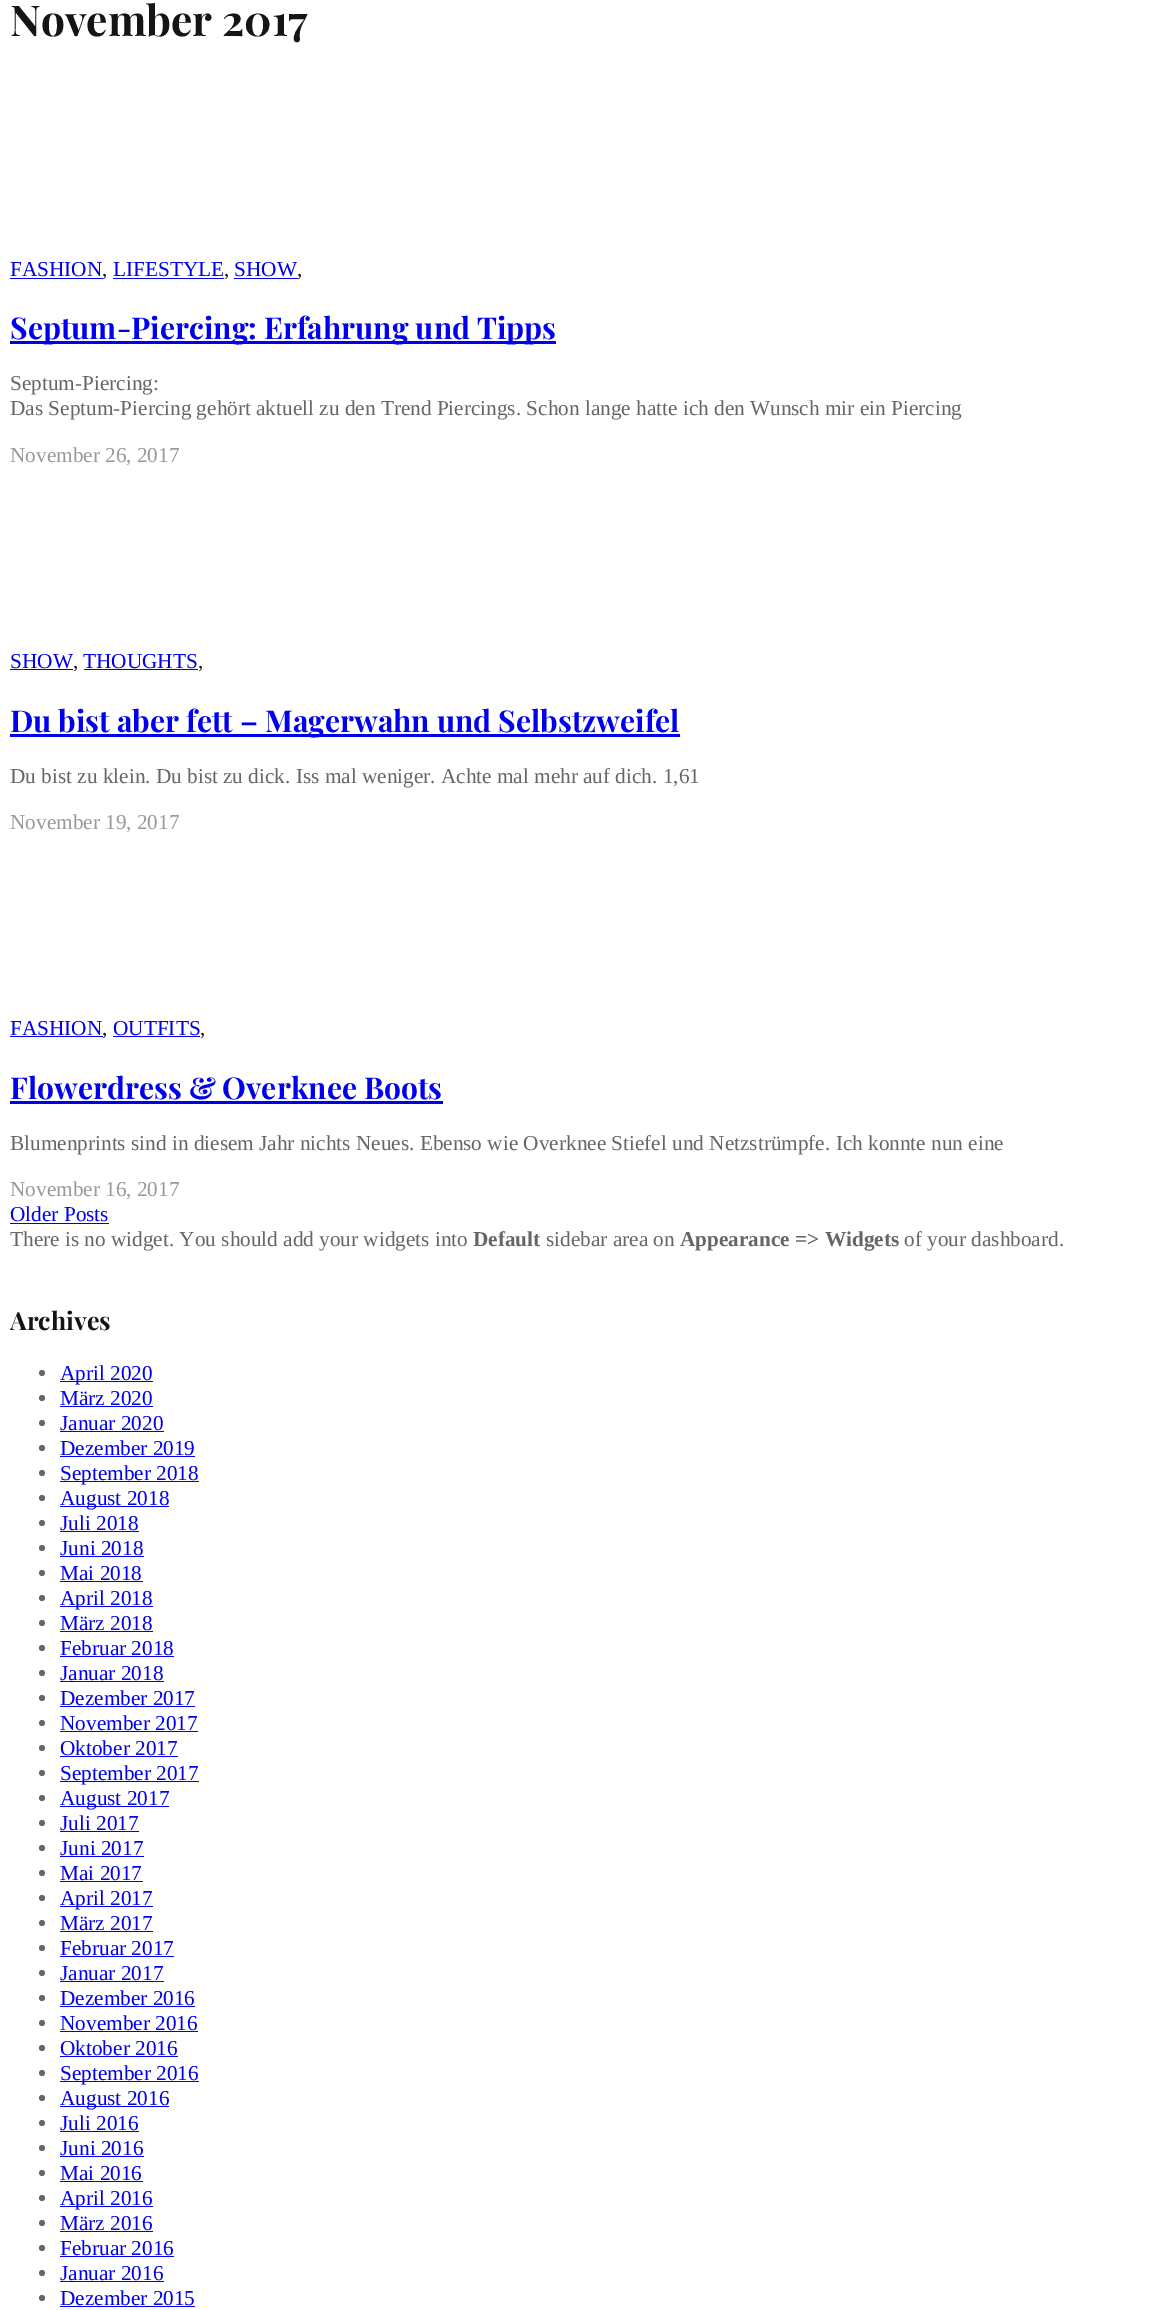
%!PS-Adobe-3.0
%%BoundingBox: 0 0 1171 2310
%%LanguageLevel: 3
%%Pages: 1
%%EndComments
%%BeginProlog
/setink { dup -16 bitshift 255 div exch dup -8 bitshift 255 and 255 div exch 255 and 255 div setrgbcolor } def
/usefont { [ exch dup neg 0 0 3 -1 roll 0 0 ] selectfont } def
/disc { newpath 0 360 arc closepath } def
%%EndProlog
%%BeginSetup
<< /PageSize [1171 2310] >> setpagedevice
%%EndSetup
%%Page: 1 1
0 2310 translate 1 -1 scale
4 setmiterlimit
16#FFFFFF setink
0 0 1171 2310 rectfill
/PlayfairDisplay-Bold 42.5 usefont
16#151515 setink
10 36 moveto (November 2017) show
/LiberationSerif-Regular 21.25 usefont
16#0000EE setink
10 276 moveto (FASHION) show
10 278 93 1 rectfill
16#151515 setink
102 276 moveto (,) show
16#0000EE setink
113 276 moveto (LIFESTYLE) show
113 278 111 1 rectfill
16#151515 setink
224 276 moveto (,) show
16#0000EE setink
234 276 moveto (SHOW) show
234 278 64 1 rectfill
16#151515 setink
297 276 moveto (,) show
16#0000EE setink
10 341 546 3 rectfill
/PlayfairDisplay-Bold 30 usefont
10 339 moveto (Septum-Piercing: Erfahrung und Tipps) show
/LiberationSerif-Regular 21.25 usefont
16#666666 setink
10 390 moveto (Septum-Piercing:) show
10 415 moveto (Das Septum-Piercing gehört aktuell zu den Trend Piercings. Schon lange hatte ich den Wunsch mir ein Piercing) show
16#999999 setink
10 462 moveto (November 26, 2017) show
16#0000EE setink
10 668 moveto (SHOW) show
10 669 63 1 rectfill
16#151515 setink
73 668 moveto (,) show
16#0000EE setink
83 668 moveto (THOUGHTS) show
84 669 114 1 rectfill
16#151515 setink
198 668 moveto (,) show
16#0000EE setink
10 734 670 3 rectfill
/PlayfairDisplay-Bold 30 usefont
10 732 moveto (Du bist aber fett – Magerwahn und Selbstzweifel) show
/LiberationSerif-Regular 21.25 usefont
16#666666 setink
10 783 moveto (Du bist zu klein. Du bist zu dick. Iss mal weniger. Achte mal mehr auf dich. 1,61) show
16#999999 setink
10 829 moveto (November 19, 2017) show
16#0000EE setink
10 1035 moveto (FASHION) show
10 1036 93 1 rectfill
16#151515 setink
102 1035 moveto (,) show
16#0000EE setink
113 1035 moveto (OUTFITS) show
113 1036 87 1 rectfill
16#151515 setink
200 1035 moveto (,) show
/PlayfairDisplay-Bold 30 usefont
16#0000EE setink
10 1099 moveto (Flowerdress & Overknee Boots) show
10 1101 433 3 rectfill
/LiberationSerif-Regular 21.25 usefont
16#666666 setink
10 1150 moveto (Blumenprints sind in diesem Jahr nichts Neues. Ebenso wie Overknee Stiefel und Netzstrümpfe. Ich konnte nun eine) show
16#999999 setink
10 1196 moveto (November 16, 2017) show
16#0000EE setink
10 1221 moveto (Older Posts) show
10 1223 99 1 rectfill
16#666666 setink
10 1246 moveto (There is no widget. You should add your widgets into) show
/LiberationSerif-Bold 21.25 usefont
473 1246 moveto (Default) show
/LiberationSerif-Regular 21.25 usefont
546 1246 moveto (sidebar area on) show
/LiberationSerif-Bold 21.25 usefont
680 1246 moveto (Appearance => Widgets) show
/LiberationSerif-Regular 21.25 usefont
904 1246 moveto (of your dashboard.) show
/PlayfairDisplay-Bold 25 usefont
16#151515 setink
10 1330 moveto (Archives) show
16#666666 setink
42 1373 3 disc fill
16#0000EE setink
60 1381 93 1 rectfill
/LiberationSerif-Regular 21.25 usefont
60 1380 moveto (April 2020) show
16#666666 setink
42 1398 3 disc fill
16#0000EE setink
60 1405 moveto (März 2020) show
60 1406 93 1 rectfill
16#666666 setink
42 1423 3 disc fill
16#0000EE setink
60 1430 moveto (Januar 2020) show
60 1431 104 1 rectfill
16#666666 setink
42 1448 3 disc fill
16#0000EE setink
60 1455 moveto (Dezember 2019) show
60 1456 135 1 rectfill
16#666666 setink
42 1473 3 disc fill
16#0000EE setink
60 1481 139 1 rectfill
60 1480 moveto (September 2018) show
16#666666 setink
42 1498 3 disc fill
16#0000EE setink
60 1506 109 1 rectfill
60 1505 moveto (August 2018) show
16#666666 setink
42 1523 3 disc fill
16#0000EE setink
60 1530 moveto (Juli 2018) show
60 1531 79 1 rectfill
16#666666 setink
42 1548 3 disc fill
16#0000EE setink
60 1555 moveto (Juni 2018) show
60 1556 84 1 rectfill
16#666666 setink
42 1573 3 disc fill
16#0000EE setink
60 1580 moveto (Mai 2018) show
60 1581 83 1 rectfill
16#666666 setink
42 1598 3 disc fill
16#0000EE setink
60 1606 93 1 rectfill
60 1605 moveto (April 2018) show
16#666666 setink
42 1623 3 disc fill
16#0000EE setink
60 1630 moveto (März 2018) show
60 1631 93 1 rectfill
16#666666 setink
42 1648 3 disc fill
16#0000EE setink
60 1655 moveto (Februar 2018) show
60 1656 114 1 rectfill
16#666666 setink
42 1673 3 disc fill
16#0000EE setink
60 1680 moveto (Januar 2018) show
60 1681 104 1 rectfill
16#666666 setink
42 1698 3 disc fill
16#0000EE setink
60 1705 moveto (Dezember 2017) show
60 1706 135 1 rectfill
16#666666 setink
42 1723 3 disc fill
16#0000EE setink
60 1730 moveto (November 2017) show
60 1731 138 1 rectfill
16#666666 setink
42 1748 3 disc fill
16#0000EE setink
60 1755 moveto (Oktober 2017) show
60 1756 118 1 rectfill
16#666666 setink
42 1773 3 disc fill
16#0000EE setink
60 1781 139 1 rectfill
60 1780 moveto (September 2017) show
16#666666 setink
42 1798 3 disc fill
16#0000EE setink
60 1806 109 1 rectfill
60 1805 moveto (August 2017) show
16#666666 setink
42 1823 3 disc fill
16#0000EE setink
60 1830 moveto (Juli 2017) show
60 1831 79 1 rectfill
16#666666 setink
42 1848 3 disc fill
16#0000EE setink
60 1855 moveto (Juni 2017) show
60 1856 84 1 rectfill
16#666666 setink
42 1873 3 disc fill
16#0000EE setink
60 1880 moveto (Mai 2017) show
60 1881 83 1 rectfill
16#666666 setink
42 1898 3 disc fill
16#0000EE setink
60 1906 93 1 rectfill
60 1905 moveto (April 2017) show
16#666666 setink
42 1923 3 disc fill
16#0000EE setink
60 1930 moveto (März 2017) show
60 1931 93 1 rectfill
16#666666 setink
42 1948 3 disc fill
16#0000EE setink
60 1955 moveto (Februar 2017) show
60 1956 114 1 rectfill
16#666666 setink
42 1973 3 disc fill
16#0000EE setink
60 1980 moveto (Januar 2017) show
60 1981 104 1 rectfill
16#666666 setink
42 1998 3 disc fill
16#0000EE setink
60 2005 moveto (Dezember 2016) show
60 2006 135 1 rectfill
16#666666 setink
42 2023 3 disc fill
16#0000EE setink
60 2030 moveto (November 2016) show
60 2031 138 1 rectfill
16#666666 setink
42 2048 3 disc fill
16#0000EE setink
60 2055 moveto (Oktober 2016) show
60 2056 118 1 rectfill
16#666666 setink
42 2073 3 disc fill
16#0000EE setink
60 2081 139 1 rectfill
60 2080 moveto (September 2016) show
16#666666 setink
42 2098 3 disc fill
16#0000EE setink
60 2106 109 1 rectfill
60 2105 moveto (August 2016) show
16#666666 setink
42 2123 3 disc fill
16#0000EE setink
60 2130 moveto (Juli 2016) show
60 2131 79 1 rectfill
16#666666 setink
42 2148 3 disc fill
16#0000EE setink
60 2155 moveto (Juni 2016) show
60 2156 84 1 rectfill
16#666666 setink
42 2173 3 disc fill
16#0000EE setink
60 2180 moveto (Mai 2016) show
60 2181 83 1 rectfill
16#666666 setink
42 2198 3 disc fill
16#0000EE setink
60 2206 93 1 rectfill
60 2205 moveto (April 2016) show
16#666666 setink
42 2223 3 disc fill
16#0000EE setink
60 2230 moveto (März 2016) show
60 2231 93 1 rectfill
16#666666 setink
42 2248 3 disc fill
16#0000EE setink
60 2255 moveto (Februar 2016) show
60 2256 114 1 rectfill
16#666666 setink
42 2273 3 disc fill
16#0000EE setink
60 2280 moveto (Januar 2016) show
60 2281 104 1 rectfill
16#666666 setink
42 2298 3 disc fill
16#0000EE setink
60 2305 moveto (Dezember 2015) show
60 2306 135 1 rectfill
showpage
%%EOF
